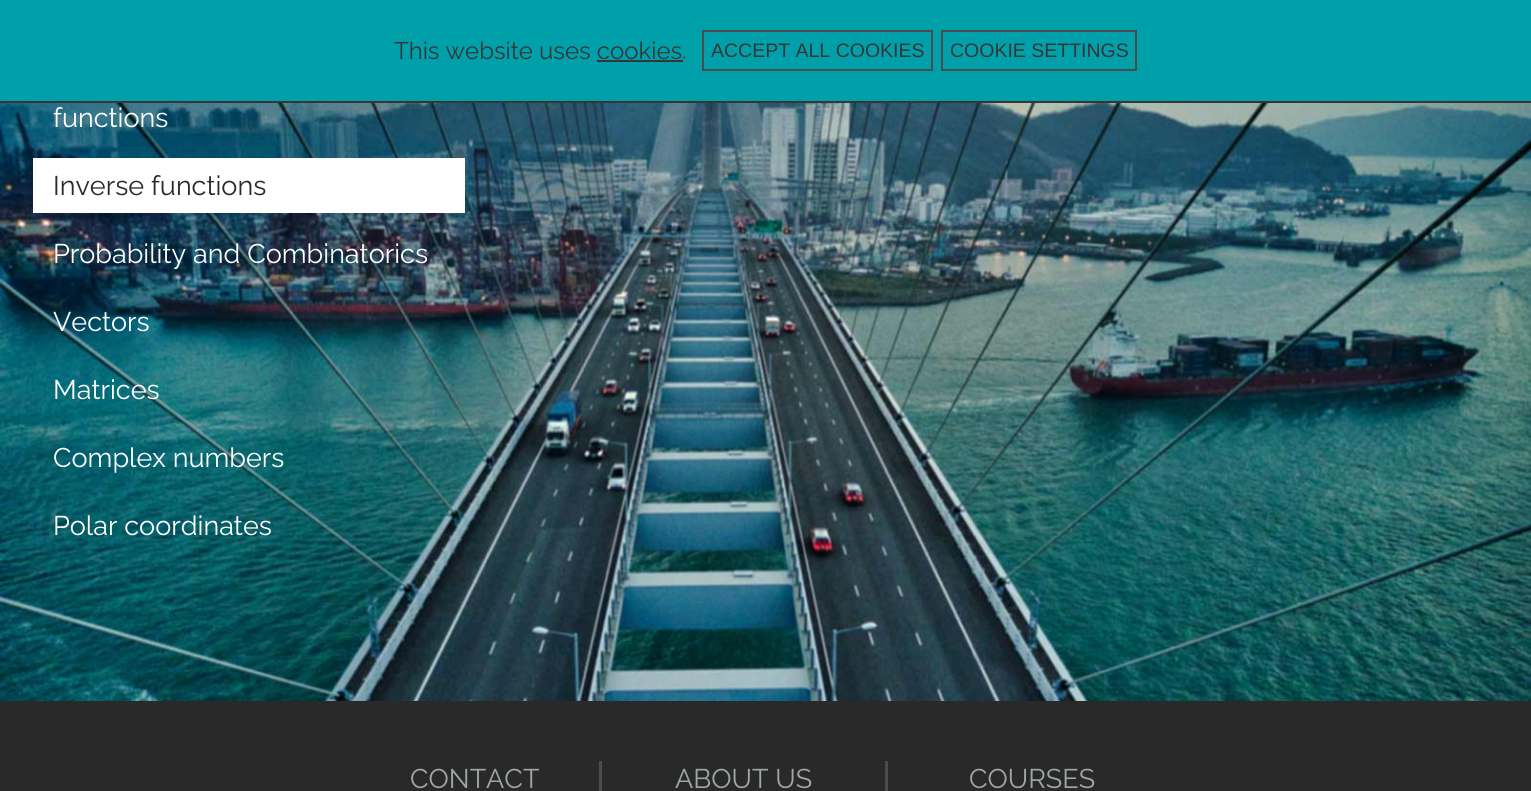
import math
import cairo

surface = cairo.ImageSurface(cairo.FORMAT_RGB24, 1531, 791)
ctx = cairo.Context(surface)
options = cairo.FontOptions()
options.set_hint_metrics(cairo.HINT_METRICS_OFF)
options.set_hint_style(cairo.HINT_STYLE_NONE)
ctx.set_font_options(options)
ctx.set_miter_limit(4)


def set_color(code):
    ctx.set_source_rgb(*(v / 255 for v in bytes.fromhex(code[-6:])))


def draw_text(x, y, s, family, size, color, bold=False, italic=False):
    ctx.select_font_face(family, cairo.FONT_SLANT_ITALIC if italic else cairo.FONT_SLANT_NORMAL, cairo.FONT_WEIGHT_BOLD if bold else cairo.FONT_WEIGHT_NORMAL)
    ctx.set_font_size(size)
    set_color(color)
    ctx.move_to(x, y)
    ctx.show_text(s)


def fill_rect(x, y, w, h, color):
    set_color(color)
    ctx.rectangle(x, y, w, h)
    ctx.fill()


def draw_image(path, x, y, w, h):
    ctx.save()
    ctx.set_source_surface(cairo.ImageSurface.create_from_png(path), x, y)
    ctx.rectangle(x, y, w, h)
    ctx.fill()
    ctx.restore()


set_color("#ffffff")
ctx.paint()
draw_image("assets/img1.png", 0, 103, 1531, 598)
fill_rect(0, 0, 1531, 101, "#00a0aa")
fill_rect(0, 101, 1531, 2, "#373536")
draw_text(394, 59, "This website uses cookies.", "Raleway", 24, "#373536")
fill_rect(597, 60, 86, 2, "#373536")
ctx.rectangle(703, 31, 229, 39)
set_color("#4b4b4b")
ctx.stroke()
draw_text(711, 57, "ACCEPT ALL COOKIES", "Liberation Sans", 19.5, "#373536")
ctx.rectangle(942, 31, 194, 39)
set_color("#4b4b4b")
ctx.stroke()
draw_text(950, 57, "COOKIE SETTINGS", "Liberation Sans", 19.5, "#373536")
draw_text(53, 127, "functions", "Raleway", 27, "#ffffff")
fill_rect(33, 158, 432, 55, "#ffffff")
draw_text(53, 195, "Inverse functions", "Raleway", 27, "#292929")
draw_text(53, 263, "Probability and Combinatorics", "Raleway", 27, "#ffffff")
draw_text(53, 331, "Vectors", "Raleway", 27, "#ffffff")
draw_text(53, 399, "Matrices", "Raleway", 27, "#ffffff")
draw_text(53, 467, "Complex numbers", "Raleway", 27, "#ffffff")
draw_text(53, 535, "Polar coordinates", "Raleway", 27, "#ffffff")
fill_rect(0, 701, 1531, 90, "#292929")
draw_text(410, 788, "CONTACT", "Raleway", 27, "#a0a7a7")
fill_rect(599, 761, 3, 30, "#4b4b4b")
draw_text(675, 788, "ABOUT US", "Raleway", 27, "#a0a7a7")
fill_rect(885, 761, 3, 30, "#4b4b4b")
draw_text(969, 788, "COURSES", "Raleway", 27, "#a0a7a7")
surface.write_to_png("output.png")
